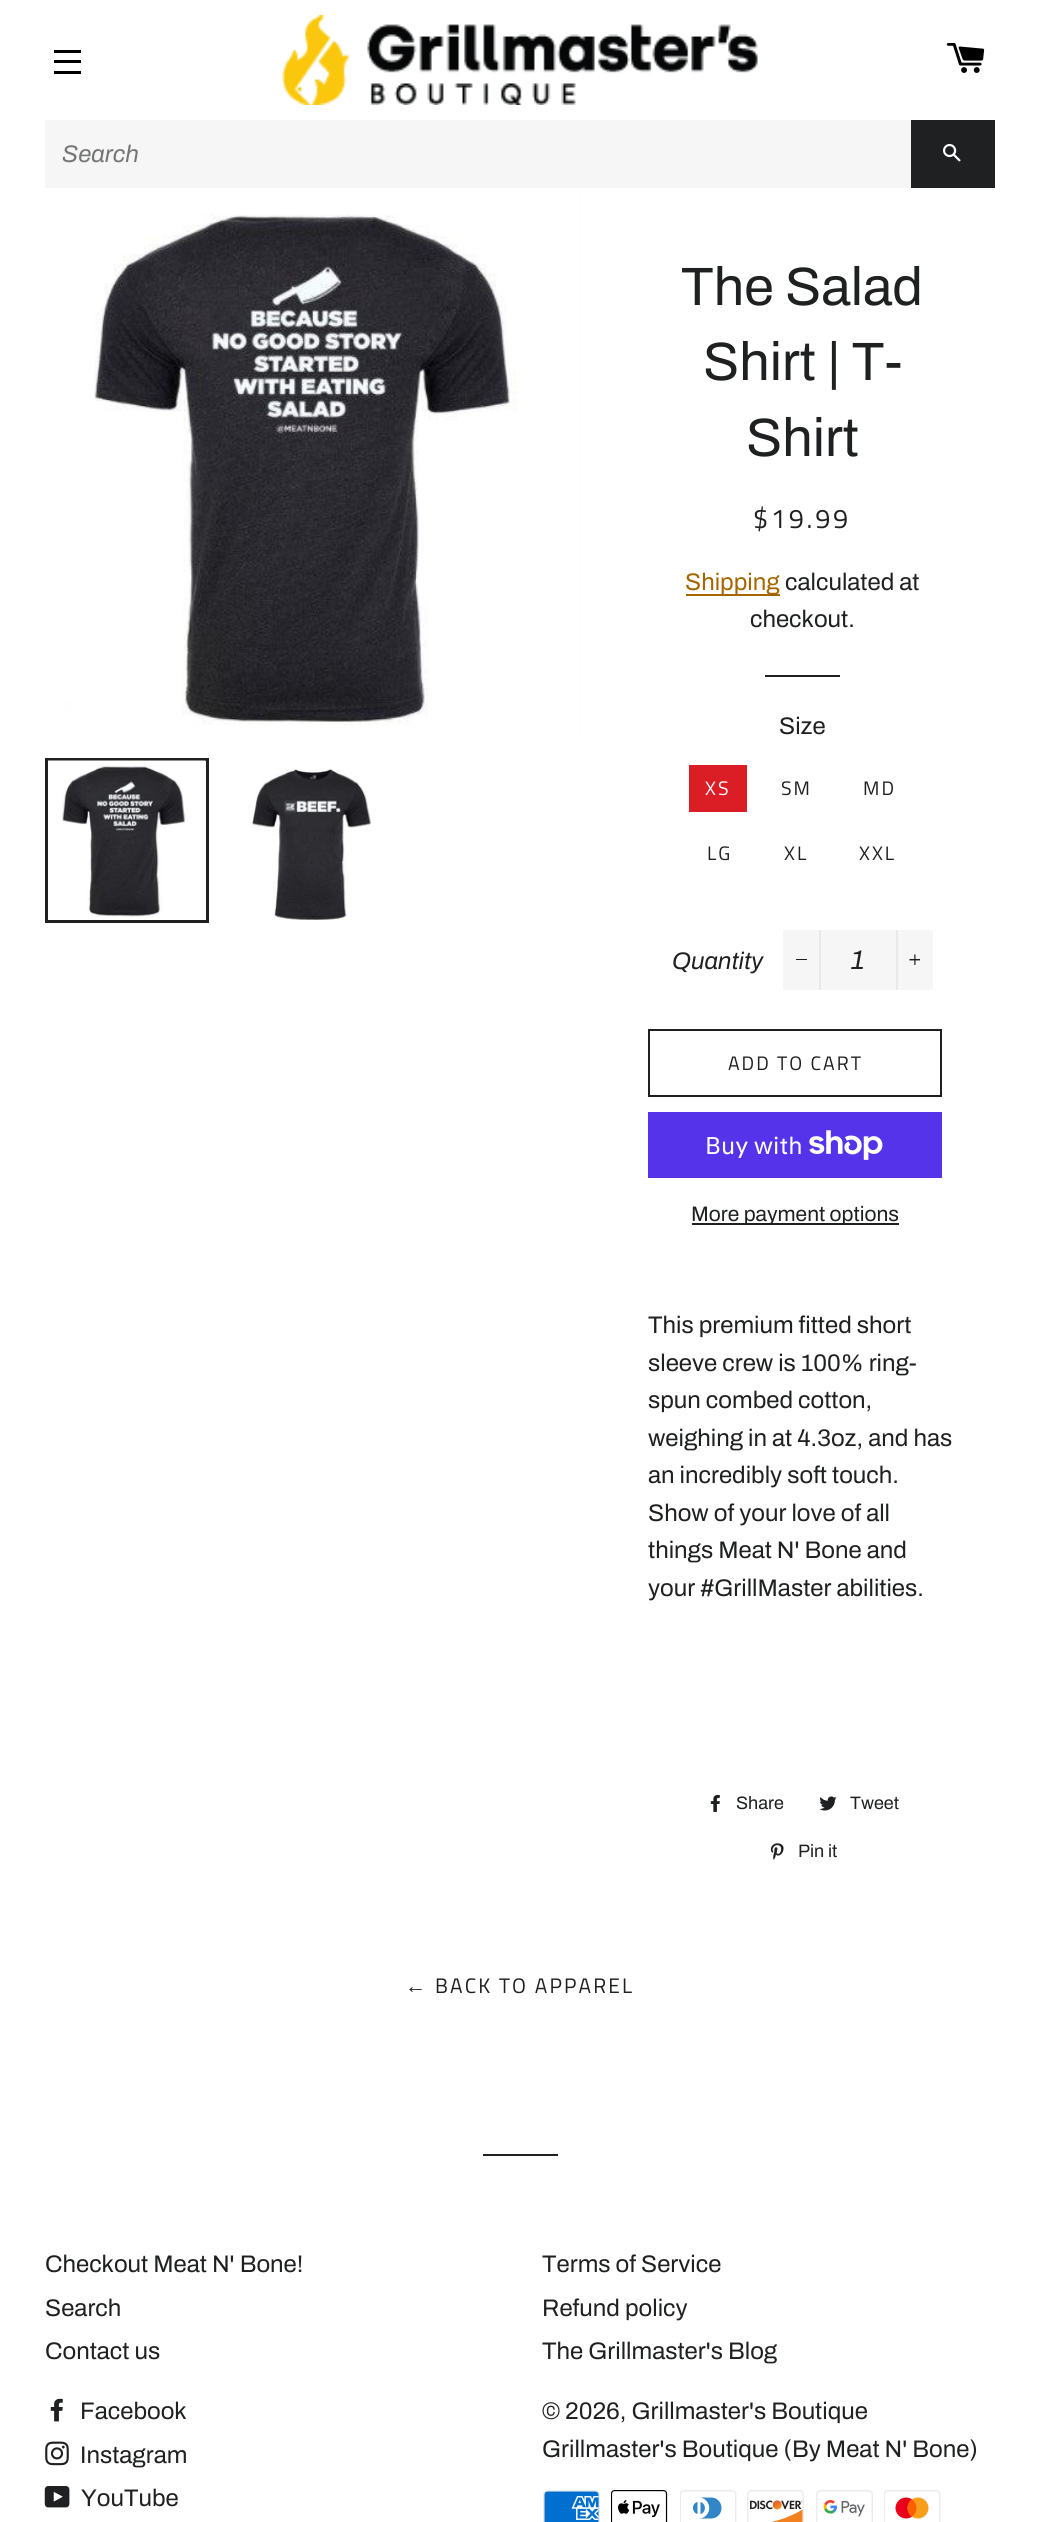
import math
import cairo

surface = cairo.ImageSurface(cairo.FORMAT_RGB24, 1039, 2522)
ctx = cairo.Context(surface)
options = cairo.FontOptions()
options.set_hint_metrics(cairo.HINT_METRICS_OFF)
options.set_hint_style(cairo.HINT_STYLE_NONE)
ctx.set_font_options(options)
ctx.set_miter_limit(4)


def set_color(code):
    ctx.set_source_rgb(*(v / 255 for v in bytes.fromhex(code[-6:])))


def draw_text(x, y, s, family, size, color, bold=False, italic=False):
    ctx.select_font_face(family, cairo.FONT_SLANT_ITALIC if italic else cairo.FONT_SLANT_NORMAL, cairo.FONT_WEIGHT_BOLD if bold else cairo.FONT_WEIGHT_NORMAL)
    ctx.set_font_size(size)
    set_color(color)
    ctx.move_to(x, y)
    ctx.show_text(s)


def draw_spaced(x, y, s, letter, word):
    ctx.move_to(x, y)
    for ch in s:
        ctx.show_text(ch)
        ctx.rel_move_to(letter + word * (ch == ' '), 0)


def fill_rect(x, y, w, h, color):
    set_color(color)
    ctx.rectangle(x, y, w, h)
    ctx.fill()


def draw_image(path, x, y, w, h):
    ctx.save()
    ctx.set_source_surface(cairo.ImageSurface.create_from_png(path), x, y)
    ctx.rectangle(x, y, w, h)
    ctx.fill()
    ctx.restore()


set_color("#ffffff")
ctx.paint()
fill_rect(54, 50, 27, 3, "#000000")
fill_rect(54, 60, 27, 3, "#000000")
fill_rect(54, 71, 27, 3, "#000000")
draw_image("assets/img1.png", 282, 15, 476, 90)
draw_image("assets/img2.png", 946, 43, 39, 30)
fill_rect(45, 120, 866, 68, "#f6f6f6")
draw_text(62, 162, "Search", "Archivo", 24, "#757676", italic=True)
fill_rect(911, 120, 84, 68, "#1f2021")
draw_image("assets/img3.png", 943, 143, 18, 19)
fill_rect(580, 195, 1, 540, "#f6f6f6")
draw_image("assets/img4.png", 45, 195, 536, 540)
ctx.rectangle(46.5, 759.5, 161, 162)
set_color("#1f2021")
ctx.set_line_width(3)
ctx.stroke()
draw_image("assets/img5.png", 48, 760, 158, 157)
draw_image("assets/img6.png", 251, 768, 120, 152)
draw_text(681, 305, "The Salad", "Archivo", 54, "#1f2021")
draw_text(703, 380, "Shirt | T-", "Archivo", 54, "#1f2021")
draw_text(746, 456, "Shirt", "Archivo", 54, "#1f2021")
ctx.select_font_face("Titillium Web")
ctx.set_font_size(27)
draw_spaced(753, 528, "$19.99", 2.75, 0)
fill_rect(686, 594, 94, 2, "#a56600")
draw_text(685, 590, "Shipping", "Archivo", 24, "#a56600")
draw_text(785, 590, "calculated at", "Archivo", 24, "#1f2021")
draw_text(750, 627, "checkout.", "Archivo", 24, "#1f2021")
fill_rect(765, 675, 75, 2, "#1f2021")
draw_text(779, 734, "Size", "Archivo", 24, "#1f2021")
fill_rect(689, 765, 58, 47, "#db1d25")
ctx.select_font_face("Titillium Web")
ctx.set_font_size(19.5)
set_color("#ffffff")
draw_spaced(705, 795, "XS", 2, 0)
set_color("#1f2021")
draw_spaced(781, 795, "SM", 2, 0)
draw_spaced(863, 795, "MD", 2, 0)
draw_spaced(707, 860, "LG", 2, 0)
draw_spaced(784, 860, "XL", 2, 0)
draw_spaced(859, 860, "XXL", 2, 0)
draw_text(672, 969, "Quantity", "Archivo", 24, "#1f2021", italic=True)
fill_rect(783, 930, 150, 60, "#f6f6f6")
fill_rect(819, 930, 2, 60, "#e9e9e9")
fill_rect(796, 959, 11, 1, "#1c1d1d")
draw_text(851, 969, "1", "Archivo", 27, "#1f2021", italic=True)
fill_rect(896, 930, 2, 60, "#e9e9e9")
draw_image("assets/img7.png", 909, 954, 12, 11)
ctx.rectangle(649, 1030, 292, 66)
set_color("#1f2021")
ctx.set_line_width(2)
ctx.stroke()
ctx.select_font_face("Titillium Web")
ctx.set_font_size(19.5)
draw_spaced(728, 1070, "ADD TO CART", 2, 0)
fill_rect(648, 1112, 294, 66, "#5433eb")
draw_text(705, 1154, "Buy with", "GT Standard", 24, "#ffffff")
draw_image("assets/img8.png", 809, 1130, 74, 30)
fill_rect(692, 1223, 207, 2, "#1f2021")
draw_text(691, 1221, "More payment options", "Archivo", 21, "#1f2021")
draw_text(648, 1333, "This premium fitted short", "Archivo", 24, "#1f2021")
draw_text(648, 1371, "sleeve crew is 100% ring-", "Archivo", 24, "#1f2021")
draw_text(648, 1408, "spun combed cotton,", "Archivo", 24, "#1f2021")
draw_text(648, 1446, "weighing in at 4.3oz, and has", "Archivo", 24, "#1f2021")
draw_text(648, 1483, "an incredibly soft touch.", "Archivo", 24, "#1f2021")
draw_text(648, 1521, "Show of your love of all", "Archivo", 24, "#1f2021")
draw_text(648, 1558, "things Meat N' Bone and", "Archivo", 24, "#1f2021")
draw_text(648, 1596, "your #GrillMaster abilities.", "Archivo", 24, "#1f2021")
draw_image("assets/img9.png", 710, 1795, 10, 17)
draw_text(736, 1809, "Share", "Archivo", 18, "#1f2021")
draw_image("assets/img10.png", 819, 1796, 18, 15)
draw_text(850, 1809, "Tweet", "Archivo", 18, "#1f2021")
draw_image("assets/img11.png", 770, 1843, 14, 17)
draw_text(798, 1857, "Pin it", "Archivo", 18, "#1f2021")
ctx.select_font_face("Liberation Sans")
ctx.set_font_size(21)
draw_spaced(405, 1993, "←", 2.1, 0)
ctx.select_font_face("Titillium Web")
draw_spaced(435, 1993, "BACK TO APPAREL", 2.1, 0)
fill_rect(483, 2154, 75, 2, "#1f2021")
draw_text(45, 2272, "Checkout Meat N' Bone!", "Archivo", 24, "#1f2021")
draw_text(45, 2316, "Search", "Archivo", 24, "#1f2021")
draw_text(45, 2359, "Contact us", "Archivo", 24, "#1f2021")
draw_text(542, 2272, "Terms of Service", "Archivo", 24, "#1f2021")
draw_text(542, 2316, "Refund policy", "Archivo", 24, "#1f2021")
draw_text(542, 2359, "The Grillmaster's Blog", "Archivo", 24, "#1f2021")
draw_image("assets/img12.png", 50, 2398, 13, 24)
draw_text(80, 2419, "Facebook", "Archivo", 24, "#1f2021")
draw_image("assets/img13.png", 45, 2441, 24, 25)
draw_text(80, 2463, "Instagram", "Archivo", 24, "#1f2021")
draw_image("assets/img14.png", 44, 2486, 26, 22)
draw_text(81, 2506, "YouTube", "Archivo", 24, "#1f2021")
draw_text(542, 2419, "© 2026, Grillmaster's Boutique", "Archivo", 24, "#1f2021")
draw_text(542, 2457, "Grillmaster's Boutique (By Meat N' Bone)", "Archivo", 24, "#1f2021")
draw_image("assets/img15.png", 543, 2490, 57, 32)
draw_image("assets/img16.png", 611, 2490, 57, 32)
draw_image("assets/img17.png", 680, 2490, 57, 32)
draw_image("assets/img18.png", 747, 2490, 57, 32)
draw_image("assets/img19.png", 816, 2490, 57, 32)
draw_image("assets/img20.png", 884, 2490, 57, 32)
surface.write_to_png("output.png")
